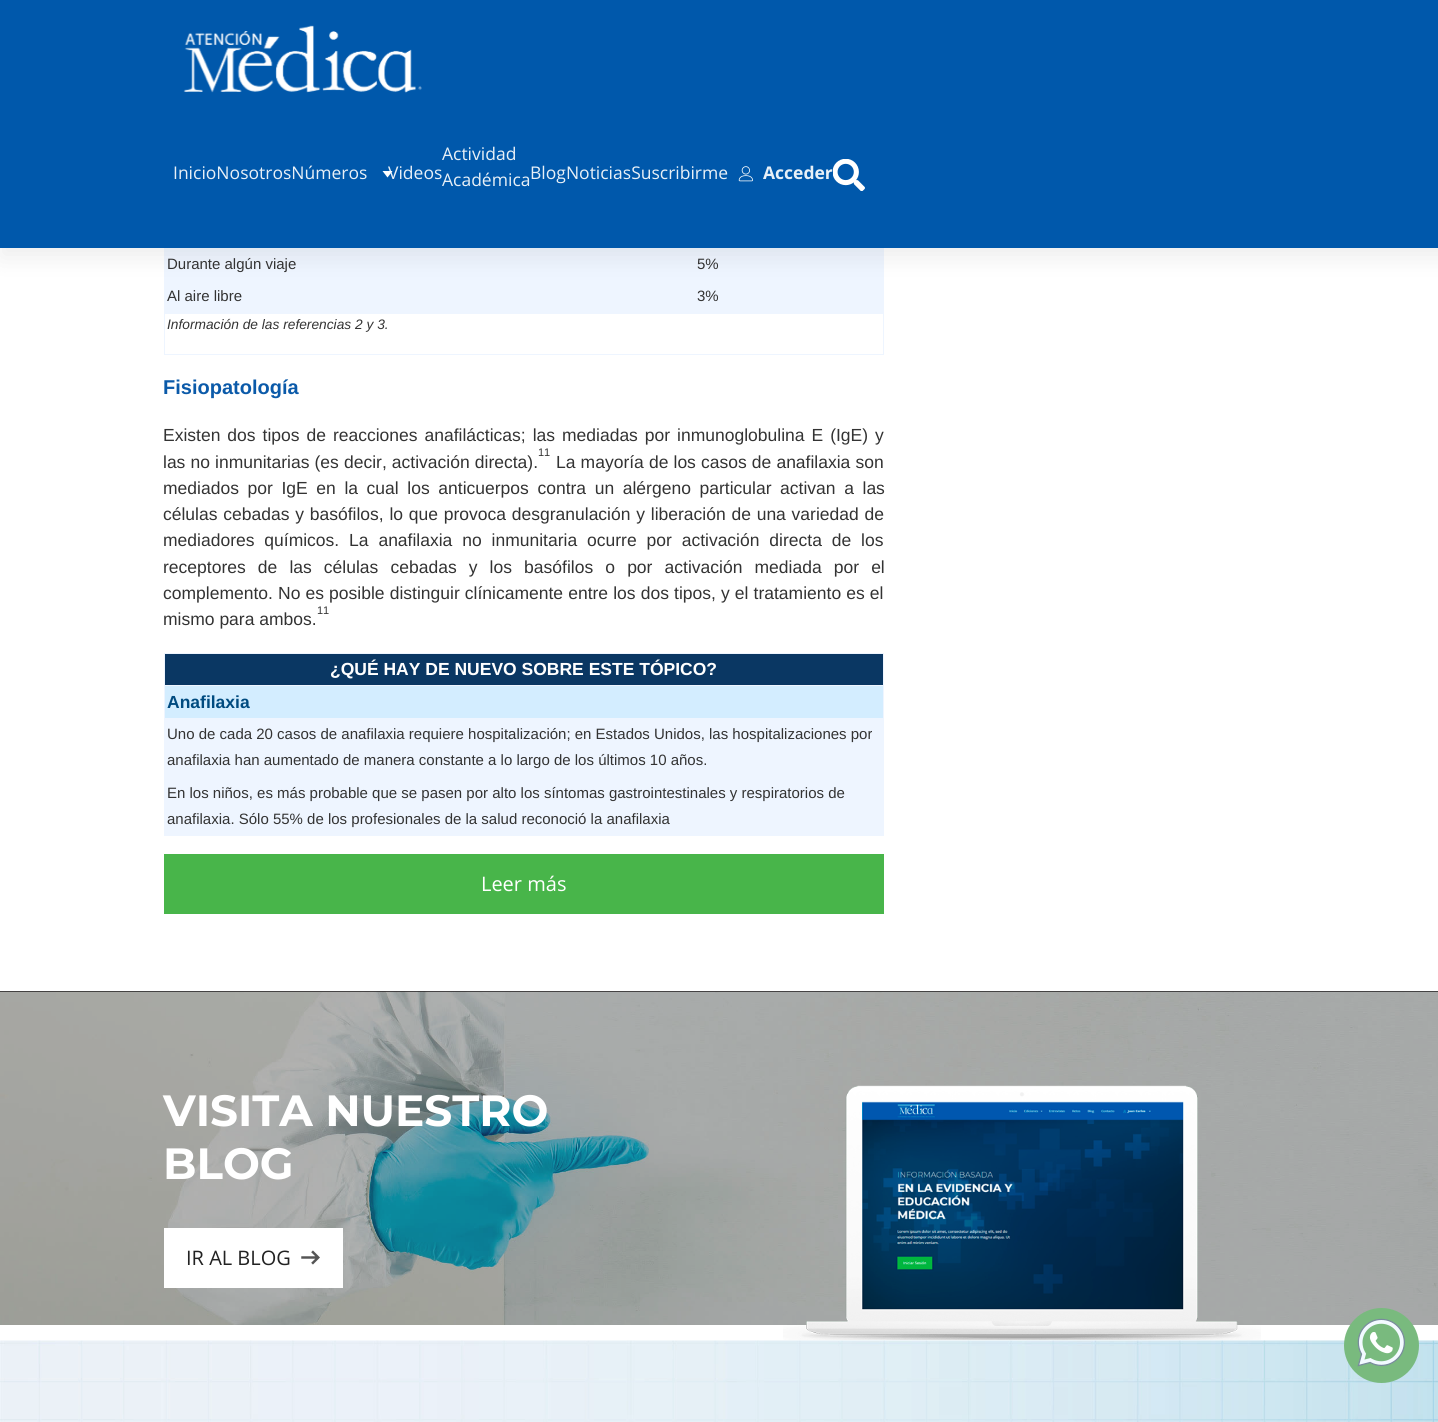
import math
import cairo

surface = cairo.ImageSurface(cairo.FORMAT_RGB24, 1438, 1422)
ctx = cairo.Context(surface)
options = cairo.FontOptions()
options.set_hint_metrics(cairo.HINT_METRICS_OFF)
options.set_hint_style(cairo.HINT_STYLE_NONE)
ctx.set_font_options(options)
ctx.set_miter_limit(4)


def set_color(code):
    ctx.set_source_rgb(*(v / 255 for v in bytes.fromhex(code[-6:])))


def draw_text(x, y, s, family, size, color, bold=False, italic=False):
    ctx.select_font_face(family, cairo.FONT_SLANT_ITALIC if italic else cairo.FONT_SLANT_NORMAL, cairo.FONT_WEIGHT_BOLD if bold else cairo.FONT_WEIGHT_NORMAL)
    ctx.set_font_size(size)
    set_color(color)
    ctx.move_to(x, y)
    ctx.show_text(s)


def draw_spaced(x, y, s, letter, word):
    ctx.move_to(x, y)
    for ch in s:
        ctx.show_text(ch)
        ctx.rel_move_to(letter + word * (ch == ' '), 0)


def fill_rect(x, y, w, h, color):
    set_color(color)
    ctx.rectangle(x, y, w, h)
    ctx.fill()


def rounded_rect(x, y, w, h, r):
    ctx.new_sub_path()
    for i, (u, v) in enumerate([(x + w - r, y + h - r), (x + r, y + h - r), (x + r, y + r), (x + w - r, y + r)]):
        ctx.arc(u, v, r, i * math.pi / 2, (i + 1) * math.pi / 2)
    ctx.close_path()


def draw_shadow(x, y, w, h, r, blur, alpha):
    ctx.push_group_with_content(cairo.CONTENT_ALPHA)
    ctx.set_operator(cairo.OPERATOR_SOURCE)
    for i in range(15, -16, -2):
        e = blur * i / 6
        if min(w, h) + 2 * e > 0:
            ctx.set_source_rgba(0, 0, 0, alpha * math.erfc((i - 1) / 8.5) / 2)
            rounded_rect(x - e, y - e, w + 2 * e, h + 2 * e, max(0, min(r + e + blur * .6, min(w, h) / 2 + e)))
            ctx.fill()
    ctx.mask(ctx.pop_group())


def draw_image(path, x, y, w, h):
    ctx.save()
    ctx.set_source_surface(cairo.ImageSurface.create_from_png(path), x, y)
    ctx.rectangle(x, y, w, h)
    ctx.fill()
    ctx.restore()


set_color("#ffffff")
ctx.paint()
fill_rect(883, 248, 1, 107, "#eef5ff")
fill_rect(164, 354, 720, 1, "#eef5ff")
fill_rect(164, 248, 1, 107, "#eef5ff")
fill_rect(165, 248, 718, 66, "#eef5ff")
set_color("#000000")
draw_shadow(0, 10, 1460, 248, 0, 12.5, 0.07)
fill_rect(0, 0, 1438, 248, "#0058ab")
draw_image("assets/img1.png", 183, 25, 239, 68)
draw_text(173, 179, "InicioNosotrosNúmeros", "Open Sans", 17.5, "#e8f0f7")
draw_text(388, 179, "Videos", "Open Sans", 17.5, "#e8f0f7")
draw_text(442, 160, "Actividad", "Open Sans", 17.5, "#e8f0f7")
draw_text(442, 186, "Académica", "Open Sans", 17.5, "#e8f0f7")
draw_text(530, 179, "BlogNoticiasSuscribirme", "Open Sans", 17.5, "#e8f0f7")
draw_image("assets/img2.png", 738, 166, 15, 16)
draw_text(763, 179, "Acceder", "Open Sans", 17.5, "#e8f0f7", bold=True)
draw_image("assets/img3.png", 833, 159, 32, 32)
set_color("#ffffff")
ctx.set_fill_rule(cairo.FILL_RULE_EVEN_ODD)
ctx.new_path()
ctx.move_to(387.5, 177.5)
ctx.line_to(392.5, 171)
ctx.line_to(382.5, 171)
ctx.close_path()
ctx.fill()
draw_text(167, 269, "Durante algún viaje", "Liberation Sans", 15, "#333333")
draw_text(697, 269, "5%", "Liberation Sans", 15, "#333333")
draw_text(167, 301, "Al aire libre", "Liberation Sans", 15, "#333333")
draw_text(697, 301, "3%", "Liberation Sans", 15, "#333333")
draw_text(167, 329, "Información de las referencias 2 y 3.", "Liberation Sans", 13.75, "#333333", italic=True)
draw_text(163, 394, "Fisiopatología", "Liberation Sans", 20, "#0b5aa9", bold=True)
ctx.select_font_face("Liberation Sans")
ctx.set_font_size(17.5)
set_color("#333333")
draw_spaced(163, 441, "Existen dos tipos de reacciones anafilácticas; las mediadas por inmunoglobulina E (IgE) y", 0, 2.1)
draw_text(538, 456, "11", "Liberation Sans", 11, "#333333")
ctx.set_font_size(17.5)
draw_spaced(163, 468, "las no inmunitarias (es decir, activación directa).", 0, 0.25)
draw_spaced(556, 468, "La mayoría de los casos de anafilaxia son", 0, 0.25)
draw_spaced(163, 494, "mediados por IgE en la cual los anticuerpos contra un alérgeno particular activan a las", 0, 3.75)
draw_spaced(163, 520, "células cebadas y basófilos, lo que provoca desgranulación y liberación de una variedad de", 0, 0.9)
draw_spaced(163, 546, "mediadores químicos. La anafilaxia no inmunitaria ocurre por activación directa de los", 0, 5)
draw_spaced(163, 573, "receptores de las células cebadas y los basófilos o por activación mediada por el", 0, 7.25)
draw_spaced(163, 599, "complemento. No es posible distinguir clínicamente entre los dos tipos, y el tratamiento es el", 0, 0.25)
draw_text(317, 614, "11", "Liberation Sans", 11, "#333333")
draw_text(163, 625, "mismo para ambos.", "Liberation Sans", 17.5, "#333333")
fill_rect(164, 653, 720, 1, "#eef5ff")
fill_rect(883, 653, 1, 183, "#eef5ff")
fill_rect(164, 653, 1, 183, "#eef5ff")
fill_rect(165, 654, 718, 31, "#0a3763")
draw_text(330, 675, "¿QUÉ HAY DE NUEVO SOBRE ESTE TÓPICO?", "Liberation Sans", 17.5, "#ffffff", bold=True)
fill_rect(165, 686, 718, 32, "#d3edff")
fill_rect(164, 685, 720, 1, "#eef5ff")
draw_text(167, 708, "Anafilaxia", "Liberation Sans", 17.5, "#004b80", bold=True)
fill_rect(165, 719, 718, 117, "#eef5ff")
fill_rect(164, 718, 720, 1, "#eef5ff")
draw_text(167, 739, "Uno de cada 20 casos de anafilaxia requiere hospitalización; en Estados Unidos, las hospitalizaciones por", "Liberation Sans", 15, "#333333")
draw_text(167, 765, "anafilaxia han aumentado de manera constante a lo largo de los últimos 10 años.", "Liberation Sans", 15, "#333333")
draw_text(167, 798, "En los niños, es más probable que se pasen por alto los síntomas gastrointestinales y respiratorios de", "Liberation Sans", 15, "#333333")
draw_text(167, 824, "anafilaxia. Sólo 55% de los profesionales de la salud reconoció la anafilaxia", "Liberation Sans", 15, "#333333")
fill_rect(164, 854, 720, 60, "#48b54a")
draw_text(481, 891, "Leer más", "Open Sans", 20, "#ffffff")
fill_rect(0, 991, 1438, 334, "#232122")
draw_image("assets/img4.png", 0, 991, 1438, 334)
draw_text(163, 1126, "VISITA NUESTRO", "Montserrat", 43.75, "#ffffff", bold=True)
draw_text(163, 1179, "BLOG", "Montserrat", 43.75, "#ffffff", bold=True)
fill_rect(164, 1228, 179, 60, "#ffffff")
draw_text(186, 1265, "IR AL BLOG", "Open Sans", 20, "#222222")
draw_image("assets/img5.png", 301, 1250, 19, 15)
draw_image("assets/img6.png", 783, 1085, 478, 255)
draw_image("assets/img7.png", 0, 1340, 1438, 82)
set_color("#79ba7e")
ctx.arc(1381.5, 1345.5, 37.5, 0, 2 * math.pi)
ctx.fill()
draw_image("assets/img8.png", 1357, 1318, 48, 49)
surface.write_to_png("output.png")
